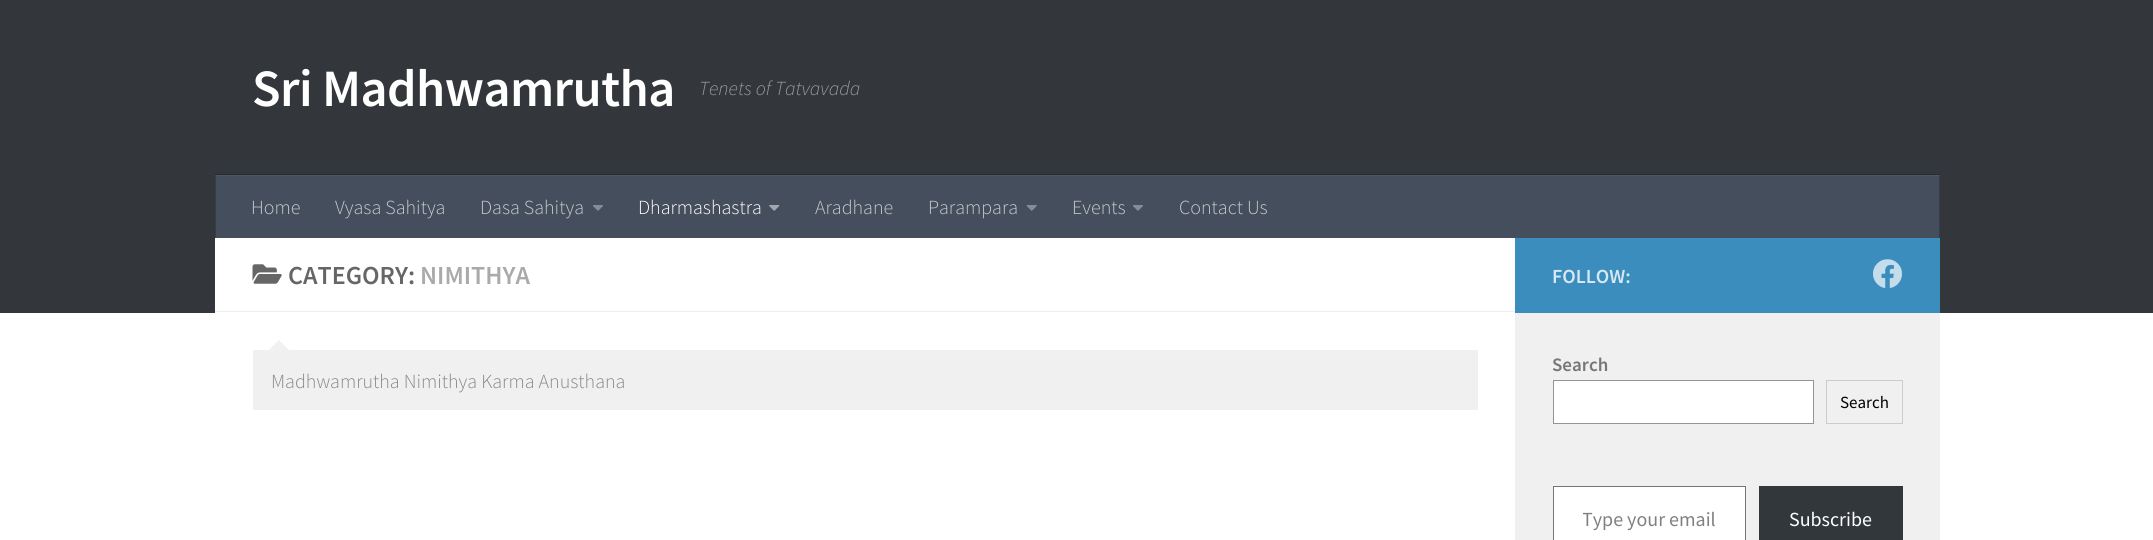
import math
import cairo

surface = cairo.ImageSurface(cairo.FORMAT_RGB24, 2153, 540)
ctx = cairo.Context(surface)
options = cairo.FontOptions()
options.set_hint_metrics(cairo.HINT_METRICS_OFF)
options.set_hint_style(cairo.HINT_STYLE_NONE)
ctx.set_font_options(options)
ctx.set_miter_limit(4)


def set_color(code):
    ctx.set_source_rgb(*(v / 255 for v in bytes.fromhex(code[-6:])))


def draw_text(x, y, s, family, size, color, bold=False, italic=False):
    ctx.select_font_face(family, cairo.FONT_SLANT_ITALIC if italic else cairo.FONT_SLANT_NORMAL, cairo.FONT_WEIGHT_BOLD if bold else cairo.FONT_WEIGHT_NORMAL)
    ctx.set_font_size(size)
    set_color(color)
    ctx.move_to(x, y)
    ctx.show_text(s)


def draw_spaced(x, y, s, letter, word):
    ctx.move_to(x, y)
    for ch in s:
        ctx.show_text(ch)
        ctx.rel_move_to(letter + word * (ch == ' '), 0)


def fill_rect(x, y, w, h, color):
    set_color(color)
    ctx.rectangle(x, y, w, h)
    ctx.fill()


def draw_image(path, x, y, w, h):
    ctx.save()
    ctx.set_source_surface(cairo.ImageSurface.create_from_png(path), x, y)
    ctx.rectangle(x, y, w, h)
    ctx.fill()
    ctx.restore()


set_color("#ffffff")
ctx.paint()
fill_rect(0, 0, 2153, 313, "#33363b")
ctx.select_font_face("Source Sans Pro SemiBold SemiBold")
ctx.set_font_size(52.5)
set_color("#ffffff")
draw_spaced(252, 106, "Sri Madhwamrutha", -0.6, 0)
draw_text(699, 95, "Tenets of Tatvavada", "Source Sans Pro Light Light", 20, "#999b9d", italic=True)
fill_rect(215, 174, 1725, 1, "#292b2f")
fill_rect(216, 176, 1723, 62, "#454e5c")
fill_rect(215, 175, 1725, 1, "#4e5764")
fill_rect(1939, 175, 1, 63, "#373e4a")
fill_rect(1939, 175, 1, 1, "#414853")
fill_rect(215, 175, 1, 63, "#373e4a")
fill_rect(215, 175, 1, 1, "#414853")
draw_text(251, 214, "Home", "Source Sans Pro Light Light", 20, "#c7cace")
draw_text(335, 214, "Vyasa Sahitya", "Source Sans Pro Light Light", 20, "#c7cace")
draw_text(480, 214, "Dasa Sahitya", "Source Sans Pro Light Light", 20, "#c7cace")
draw_image("assets/img1.png", 593, 205, 10, 6)
draw_text(638, 214, "Dharmashastra", "Source Sans Pro Light Light", 20, "#ffffff")
draw_image("assets/img2.png", 769, 205, 11, 6)
draw_text(815, 214, "Aradhane", "Source Sans Pro Light Light", 20, "#c7cace")
draw_text(928, 214, "Parampara", "Source Sans Pro Light Light", 20, "#c7cace")
draw_image("assets/img3.png", 1026, 205, 11, 6)
draw_text(1072, 214, "Events", "Source Sans Pro Light Light", 20, "#c7cace")
draw_image("assets/img1.png", 1133, 205, 10, 6)
draw_text(1179, 214, "Contact Us", "Source Sans Pro Light Light", 20, "#c7cace")
fill_rect(215, 238, 1300, 75, "#ffffff")
fill_rect(215, 311, 1300, 1, "#eeeeee")
draw_image("assets/img4.png", 252, 264, 30, 20)
draw_text(288, 284, "CATEGORY:", "Source Sans Pro SemiBold SemiBold", 26, "#666666")
draw_text(420, 284, "NIMITHYA", "Source Sans Pro SemiBold SemiBold", 26, "#aaaaaa")
fill_rect(253, 350, 1225, 60, "#f0f0f0")
set_color("#f1f1f1")
ctx.new_path()
ctx.move_to(289, 350)
ctx.line_to(269, 350)
ctx.line_to(279, 340)
ctx.close_path()
ctx.fill()
draw_text(271, 388, "Madhwamrutha Nimithya Karma Anusthana", "Source Sans Pro Light Light", 20, "#888888")
fill_rect(1515, 238, 425, 75, "#3b8dbd")
draw_text(1552, 283, "FOLLOW:", "Source Sans Pro SemiBold SemiBold", 20, "#d8e8f2")
draw_image("assets/img5.png", 1873, 259, 29, 29)
fill_rect(1515, 313, 425, 227, "#f0f0f0")
draw_text(1552, 371, "Search", "Source Sans Pro SemiBold SemiBold", 19, "#777777")
set_color("#ffffff")
ctx.rectangle(1553.5, 380.5, 260, 43)
ctx.fill_preserve()
set_color("#949494")
ctx.set_line_width(1)
ctx.stroke()
ctx.rectangle(1826.5, 380.5, 76, 43)
set_color("#cccccc")
ctx.stroke()
draw_text(1840, 408, "Search", "Source Sans Pro", 17, "#000000")
set_color("#ffffff")
ctx.rectangle(1553.5, 486.5, 192, 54)
ctx.fill_preserve()
set_color("#767676")
ctx.stroke()
ctx.save()
ctx.rectangle(1583, 506, 133, 25)
ctx.clip()
draw_text(1582, 526, "Type your email", "Source Sans Pro", 20, "#808080")
ctx.restore()
fill_rect(1759, 486, 144, 54, "#32373c")
draw_text(1789, 526, "Subscribe", "Source Sans Pro", 20, "#ffffff")
surface.write_to_png("output.png")
